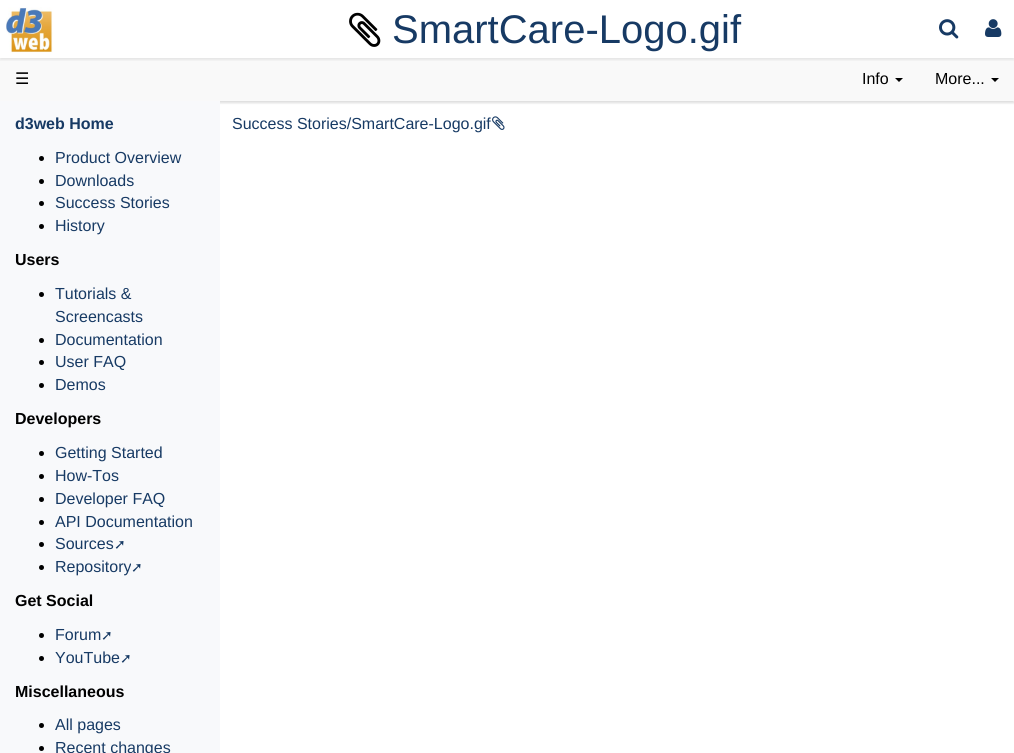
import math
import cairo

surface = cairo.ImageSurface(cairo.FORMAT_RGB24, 1014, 753)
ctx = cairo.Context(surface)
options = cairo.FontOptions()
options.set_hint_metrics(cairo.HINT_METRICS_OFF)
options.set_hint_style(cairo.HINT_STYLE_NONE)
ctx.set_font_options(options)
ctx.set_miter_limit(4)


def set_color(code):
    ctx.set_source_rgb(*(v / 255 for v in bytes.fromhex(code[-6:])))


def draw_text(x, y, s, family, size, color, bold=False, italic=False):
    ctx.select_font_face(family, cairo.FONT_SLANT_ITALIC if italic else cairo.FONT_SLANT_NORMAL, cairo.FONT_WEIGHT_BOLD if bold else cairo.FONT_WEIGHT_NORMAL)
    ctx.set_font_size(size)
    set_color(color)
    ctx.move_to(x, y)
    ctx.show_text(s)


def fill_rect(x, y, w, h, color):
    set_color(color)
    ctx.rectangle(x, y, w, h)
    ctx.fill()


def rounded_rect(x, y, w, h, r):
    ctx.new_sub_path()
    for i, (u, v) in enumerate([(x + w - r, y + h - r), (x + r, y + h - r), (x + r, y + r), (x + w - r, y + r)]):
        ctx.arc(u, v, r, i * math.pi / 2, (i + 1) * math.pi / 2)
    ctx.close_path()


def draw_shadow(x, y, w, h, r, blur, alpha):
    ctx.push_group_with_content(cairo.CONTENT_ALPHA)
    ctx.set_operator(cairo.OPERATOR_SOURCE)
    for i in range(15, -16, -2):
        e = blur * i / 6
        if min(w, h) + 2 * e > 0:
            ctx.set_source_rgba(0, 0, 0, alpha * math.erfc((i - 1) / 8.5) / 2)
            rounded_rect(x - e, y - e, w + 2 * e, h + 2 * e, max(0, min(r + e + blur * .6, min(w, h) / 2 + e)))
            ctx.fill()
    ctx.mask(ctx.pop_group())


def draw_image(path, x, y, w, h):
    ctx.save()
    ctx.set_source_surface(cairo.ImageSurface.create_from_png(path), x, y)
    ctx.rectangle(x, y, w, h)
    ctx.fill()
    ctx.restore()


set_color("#ffffff")
ctx.paint()
ctx.save()
ctx.rectangle(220, 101, 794, 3)
ctx.clip()
set_color("#000000")
draw_shadow(0, 2, 1014, 101, 0, 1.5, 0.07)
ctx.restore()
set_color("#000000")
draw_shadow(0, 60, 1014, 43, 0, 1.5, 0.08)
fill_rect(0, 58, 1014, 43, "#f9f9f9")
ctx.save()
ctx.rectangle(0, 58, 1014, 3)
ctx.clip()
set_color("#000000")
draw_shadow(0, 2, 1014, 58, 0, 1.5, 0.08)
ctx.restore()
draw_image("assets/img1.png", 6, 7, 47, 46)
draw_image("assets/img2.png", 349, 12, 32, 35)
draw_text(392, 43, "SmartCare-Logo.gif", "Liberation Sans", 40, "#173a64")
draw_image("assets/img3.png", 939, 19, 20, 20)
draw_image("assets/img4.png", 985, 19, 17, 18)
draw_text(15, 84, "☰", "DejaVu Sans", 16, "#000000")
draw_text(862, 84, "Info", "Liberation Sans", 16, "#000000")
ctx.new_path()
ctx.move_to(895, 78)
ctx.line_to(903, 78)
ctx.line_to(899, 82)
ctx.close_path()
ctx.fill()
draw_text(935, 84, "More...", "Liberation Sans", 16, "#000000")
ctx.new_path()
ctx.move_to(991, 78)
ctx.line_to(999, 78)
ctx.line_to(995, 82)
ctx.close_path()
ctx.fill()
fill_rect(0, 101, 220, 652, "#f8f9fb")
draw_text(15, 129, "d3web Home", "Liberation Sans", 16, "#173a64", bold=True)
set_color("#000000")
ctx.new_path()
ctx.arc(41.5, 158.5, 2.5, 0, 2 * math.pi)
ctx.fill()
draw_text(55, 163, "Product Overview", "Liberation Sans", 16, "#173a64")
set_color("#000000")
ctx.new_path()
ctx.arc(41.5, 181.5, 2.5, 0, 2 * math.pi)
ctx.fill()
draw_text(55, 186, "Downloads", "Liberation Sans", 16, "#173a64")
set_color("#000000")
ctx.new_path()
ctx.arc(41.5, 203.5, 2.5, 0, 2 * math.pi)
ctx.fill()
draw_text(55, 208, "Success Stories", "Liberation Sans", 16, "#173a64")
set_color("#000000")
ctx.new_path()
ctx.arc(41.5, 226.5, 2.5, 0, 2 * math.pi)
ctx.fill()
draw_text(55, 231, "History", "Liberation Sans", 16, "#173a64")
draw_text(15, 265, "Users", "Liberation Sans", 16, "#000000", bold=True)
ctx.new_path()
ctx.arc(41.5, 294.5, 2.5, 0, 2 * math.pi)
ctx.fill()
draw_text(55, 299, "Tutorials &", "Liberation Sans", 16, "#173a64")
draw_text(55, 322, "Screencasts", "Liberation Sans", 16, "#173a64")
set_color("#000000")
ctx.new_path()
ctx.arc(41.5, 340.5, 2.5, 0, 2 * math.pi)
ctx.fill()
draw_text(55, 345, "Documentation", "Liberation Sans", 16, "#173a64")
set_color("#000000")
ctx.new_path()
ctx.arc(41.5, 362.5, 2.5, 0, 2 * math.pi)
ctx.fill()
draw_text(55, 367, "User FAQ", "Liberation Sans", 16, "#173a64")
set_color("#000000")
ctx.new_path()
ctx.arc(41.5, 385.5, 2.5, 0, 2 * math.pi)
ctx.fill()
draw_text(55, 390, "Demos", "Liberation Sans", 16, "#173a64")
draw_text(15, 424, "Developers", "Liberation Sans", 16, "#000000", bold=True)
ctx.new_path()
ctx.arc(41.5, 453.5, 2.5, 0, 2 * math.pi)
ctx.fill()
draw_text(55, 458, "Getting Started", "Liberation Sans", 16, "#173a64")
set_color("#000000")
ctx.new_path()
ctx.arc(41.5, 476.5, 2.5, 0, 2 * math.pi)
ctx.fill()
draw_text(55, 481, "How-Tos", "Liberation Sans", 16, "#173a64")
set_color("#000000")
ctx.new_path()
ctx.arc(41.5, 499.5, 2.5, 0, 2 * math.pi)
ctx.fill()
draw_text(55, 504, "Developer FAQ", "Liberation Sans", 16, "#173a64")
set_color("#000000")
ctx.new_path()
ctx.arc(41.5, 522.5, 2.5, 0, 2 * math.pi)
ctx.fill()
draw_text(55, 527, "API Documentation", "Liberation Sans", 16, "#173a64")
set_color("#000000")
ctx.new_path()
ctx.arc(41.5, 544.5, 2.5, 0, 2 * math.pi)
ctx.fill()
draw_text(55, 549, "Sources", "Liberation Sans", 16, "#173a64")
draw_text(114, 549, "➚", "DejaVu Sans", 14, "#173a64")
set_color("#000000")
ctx.new_path()
ctx.arc(41.5, 567.5, 2.5, 0, 2 * math.pi)
ctx.fill()
draw_text(55, 572, "Repository", "Liberation Sans", 16, "#173a64")
draw_text(131, 572, "➚", "DejaVu Sans", 14, "#173a64")
draw_text(15, 606, "Get Social", "Liberation Sans", 16, "#000000", bold=True)
ctx.new_path()
ctx.arc(41.5, 635.5, 2.5, 0, 2 * math.pi)
ctx.fill()
draw_text(55, 640, "Forum", "Liberation Sans", 16, "#173a64")
draw_text(101, 640, "➚", "DejaVu Sans", 14, "#173a64")
set_color("#000000")
ctx.new_path()
ctx.arc(41.5, 658.5, 2.5, 0, 2 * math.pi)
ctx.fill()
draw_text(55, 663, "YouTube", "Liberation Sans", 16, "#173a64")
draw_text(120, 663, "➚", "DejaVu Sans", 14, "#173a64")
draw_text(15, 697, "Miscellaneous", "Liberation Sans", 16, "#000000", bold=True)
ctx.new_path()
ctx.arc(41.5, 725.5, 2.5, 0, 2 * math.pi)
ctx.fill()
draw_text(55, 730, "All pages", "Liberation Sans", 16, "#173a64")
set_color("#000000")
ctx.new_path()
ctx.arc(41.5, 748.5, 2.5, 0, 2 * math.pi)
ctx.fill()
draw_text(55, 753, "Recent changes", "Liberation Sans", 16, "#173a64")
draw_text(232, 129, "Success Stories/SmartCare-Logo.gif", "Liberation Sans", 16, "#173a64")
draw_image("assets/img5.png", 492, 116, 13, 14)
surface.write_to_png("output.png")
